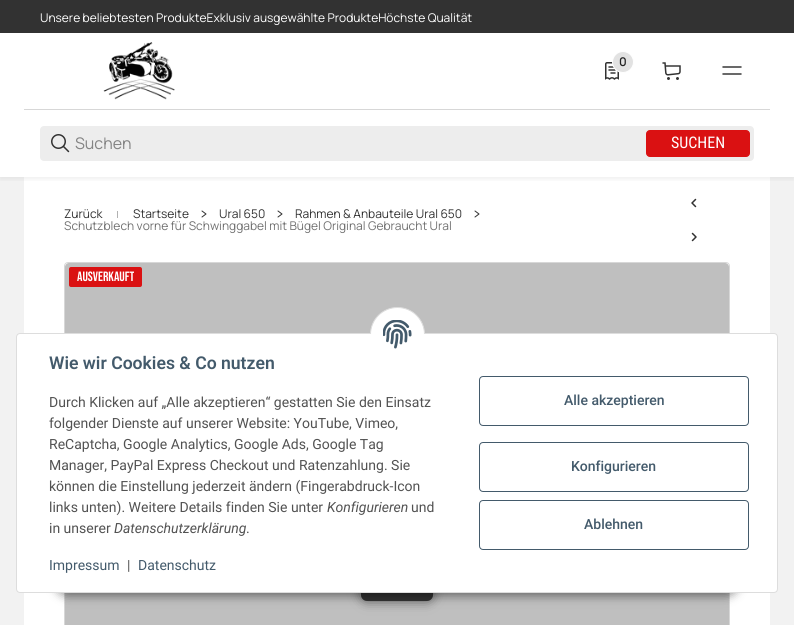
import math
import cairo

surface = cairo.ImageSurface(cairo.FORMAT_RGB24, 794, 625)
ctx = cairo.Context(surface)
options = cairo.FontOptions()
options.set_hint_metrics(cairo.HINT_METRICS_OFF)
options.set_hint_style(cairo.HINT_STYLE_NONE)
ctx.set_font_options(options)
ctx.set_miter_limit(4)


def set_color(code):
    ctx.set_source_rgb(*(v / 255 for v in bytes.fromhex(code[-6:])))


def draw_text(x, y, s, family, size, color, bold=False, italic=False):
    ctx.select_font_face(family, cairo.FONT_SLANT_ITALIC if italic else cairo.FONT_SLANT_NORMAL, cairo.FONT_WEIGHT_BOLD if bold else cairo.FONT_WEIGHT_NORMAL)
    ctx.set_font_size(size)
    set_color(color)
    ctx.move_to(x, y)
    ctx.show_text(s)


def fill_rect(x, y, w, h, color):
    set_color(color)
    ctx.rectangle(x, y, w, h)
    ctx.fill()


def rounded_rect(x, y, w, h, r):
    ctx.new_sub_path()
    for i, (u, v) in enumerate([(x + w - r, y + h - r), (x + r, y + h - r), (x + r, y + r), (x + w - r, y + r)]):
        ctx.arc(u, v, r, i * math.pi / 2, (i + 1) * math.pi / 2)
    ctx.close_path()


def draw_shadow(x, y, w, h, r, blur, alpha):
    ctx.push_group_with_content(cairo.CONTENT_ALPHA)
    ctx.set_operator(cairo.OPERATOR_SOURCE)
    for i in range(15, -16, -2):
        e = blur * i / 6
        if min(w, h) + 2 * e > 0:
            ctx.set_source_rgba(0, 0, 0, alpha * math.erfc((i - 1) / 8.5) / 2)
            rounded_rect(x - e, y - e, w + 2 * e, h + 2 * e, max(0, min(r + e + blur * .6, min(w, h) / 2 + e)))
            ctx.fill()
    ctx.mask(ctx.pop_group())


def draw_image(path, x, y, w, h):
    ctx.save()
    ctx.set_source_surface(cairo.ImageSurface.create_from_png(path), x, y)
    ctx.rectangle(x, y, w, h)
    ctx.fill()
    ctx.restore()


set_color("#f2f2f2")
ctx.paint()
fill_rect(0, 0, 794, 33, "#323232")
draw_text(40, 22, "Unsere beliebtesten ProdukteExklusiv ausgewählte ProdukteHöchste Qualität", "Manrope ExtraLight", 12, "#ffffff")
fill_rect(0, 33, 794, 144, "#ffffff")
draw_image("assets/img1.png", 103, 42, 72, 58)
draw_image("assets/img2.png", 605, 62, 14, 18)
set_color("#e2e2e2")
ctx.arc(623, 62, 10.5, 0, 2 * math.pi)
ctx.fill_preserve()
set_color("#ffffff")
ctx.set_line_width(1)
ctx.stroke()
draw_text(619, 66, "0", "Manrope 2 ExtraLight", 12, "#222222")
draw_image("assets/img3.png", 662, 62, 19, 18)
draw_image("assets/img4.png", 722, 66, 20, 9)
fill_rect(24, 109, 746, 1, "#d7d7d7")
set_color("#ededed")
rounded_rect(40, 126, 714, 35, 4)
ctx.fill()
draw_image("assets/img5.png", 51, 134, 19, 19)
draw_text(75, 149, "Suchen", "Manrope ExtraLight", 16, "#848484")
set_color("#da1112")
rounded_rect(646.5, 130.5, 103, 26, 3.5)
ctx.fill_preserve()
ctx.stroke()
draw_text(671, 148, "SUCHEN", "Roboto Condensed", 16, "#ffffff")
fill_rect(24, 177, 746, 448, "#ffffff")
ctx.save()
ctx.rectangle(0, 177, 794, 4)
ctx.clip()
set_color("#000000")
draw_shadow(0, 169, 794, 10, 0, 3, 0.07)
ctx.restore()
draw_text(64, 218, "Zurück", "Manrope ExtraLight", 12, "#323232")
fill_rect(117, 211, 1, 7, "#b1b1b1")
draw_text(133, 218, "Startseite", "Manrope ExtraLight", 12, "#323232")
ctx.new_path()
ctx.move_to(202, 217)
ctx.line_to(206, 214)
ctx.line_to(202, 211)
ctx.set_line_cap(cairo.LINE_CAP_ROUND)
ctx.set_line_join(cairo.LINE_JOIN_ROUND)
ctx.stroke()
draw_text(219, 218, "Ural 650", "Manrope ExtraLight", 12, "#323232")
ctx.new_path()
ctx.move_to(278, 217)
ctx.line_to(282, 214)
ctx.line_to(278, 211)
ctx.stroke()
draw_text(295, 218, "Rahmen & Anbauteile Ural 650", "Manrope ExtraLight", 12, "#323232")
ctx.new_path()
ctx.move_to(475, 217)
ctx.line_to(479, 214)
ctx.line_to(475, 211)
ctx.stroke()
draw_text(64, 230, "Schutzblech vorne für Schwinggabel mit Bügel Original Gebraucht Ural", "Manrope ExtraLight", 12, "#727272")
ctx.new_path()
ctx.move_to(695.5, 206.5)
ctx.line_to(692, 203)
ctx.line_to(695.5, 199.5)
ctx.move_to(692.5, 240.5)
ctx.line_to(696, 237)
ctx.line_to(692.5, 233.5)
set_color("#323232")
ctx.set_line_width(1.5)
ctx.stroke()
rounded_rect(64.5, 262.5, 665, 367, 3.5)
set_color("#d7d7d7")
ctx.set_line_width(1)
ctx.set_line_cap(cairo.LINE_CAP_BUTT)
ctx.set_line_join(cairo.LINE_JOIN_MITER)
ctx.stroke()
set_color("#bfbfbf")
rounded_rect(65, 263, 664, 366, 4)
ctx.fill()
set_color("#da1112")
rounded_rect(69, 267, 73, 20, 2)
ctx.fill()
draw_text(77, 281, "AUSVERKAUFT", "Bebas Neue", 13.5, "#ffffff")
set_color("#000000")
draw_shadow(361, 543, 72, 58, 6, 6, 0.5)
set_color("#323232")
rounded_rect(361, 543, 72, 58, 6)
ctx.fill()
set_color("#000000")
draw_shadow(55, 564, 684, 32, 16, 5, 0.45)
set_color("#ffffff")
rounded_rect(16.5, 333.5, 761, 259, 3.5)
ctx.fill_preserve()
set_color("#dddddd")
ctx.stroke()
set_color("#ffffff")
ctx.arc(397.5, 334.5, 27, 0, 2 * math.pi)
ctx.fill_preserve()
set_color("#dddddd")
ctx.stroke()
fill_rect(370, 334, 55, 28, "#ffffff")
draw_image("assets/img6.png", 383, 320, 29, 29)
draw_text(49, 369, "Wie wir Cookies & Co nutzen", "Roboto SemiBold", 17.6, "#435a6b")
draw_text(49, 407, "Durch Klicken auf „Alle akzeptieren“ gestatten Sie den Einsatz", "Roboto", 14, "#525252")
draw_text(49, 428, "folgender Dienste auf unserer Website: YouTube, Vimeo,", "Roboto", 14, "#525252")
draw_text(49, 449, "ReCaptcha, Google Analytics, Google Ads, Google Tag", "Roboto", 14, "#525252")
draw_text(49, 470, "Manager, PayPal Express Checkout und Ratenzahlung. Sie", "Roboto", 14, "#525252")
draw_text(49, 491, "können die Einstellung jederzeit ändern (Fingerabdruck-Icon", "Roboto", 14, "#525252")
draw_text(49, 512, "links unten). Weitere Details finden Sie unter", "Roboto", 14, "#525252")
draw_text(327, 512, "Konfigurieren", "Roboto", 14, "#525252", italic=True)
draw_text(411, 512, "und", "Roboto", 14, "#525252")
draw_text(49, 533, "in unserer", "Roboto", 14, "#525252")
draw_text(114, 533, "Datenschutzerklärung", "Roboto", 14, "#525252", italic=True)
draw_text(246, 533, ".", "Roboto", 14, "#525252")
draw_text(49, 570, "Impressum", "Roboto", 14, "#435a6b")
draw_text(127, 570, "|", "Roboto", 14, "#525252")
draw_text(138, 570, "Datenschutz", "Roboto", 14, "#435a6b")
rounded_rect(479.5, 376.5, 269, 49, 3.5)
ctx.stroke()
draw_text(564, 405, "Alle akzeptieren", "Roboto Medium", 14, "#435a6b")
rounded_rect(479.5, 442.5, 269, 49, 3.5)
ctx.stroke()
draw_text(571, 471, "Konfigurieren", "Roboto Medium", 14, "#435a6b")
rounded_rect(479.5, 500.5, 269, 49, 3.5)
ctx.stroke()
draw_text(584, 529, "Ablehnen", "Roboto Medium", 14, "#435a6b")
surface.write_to_png("output.png")
